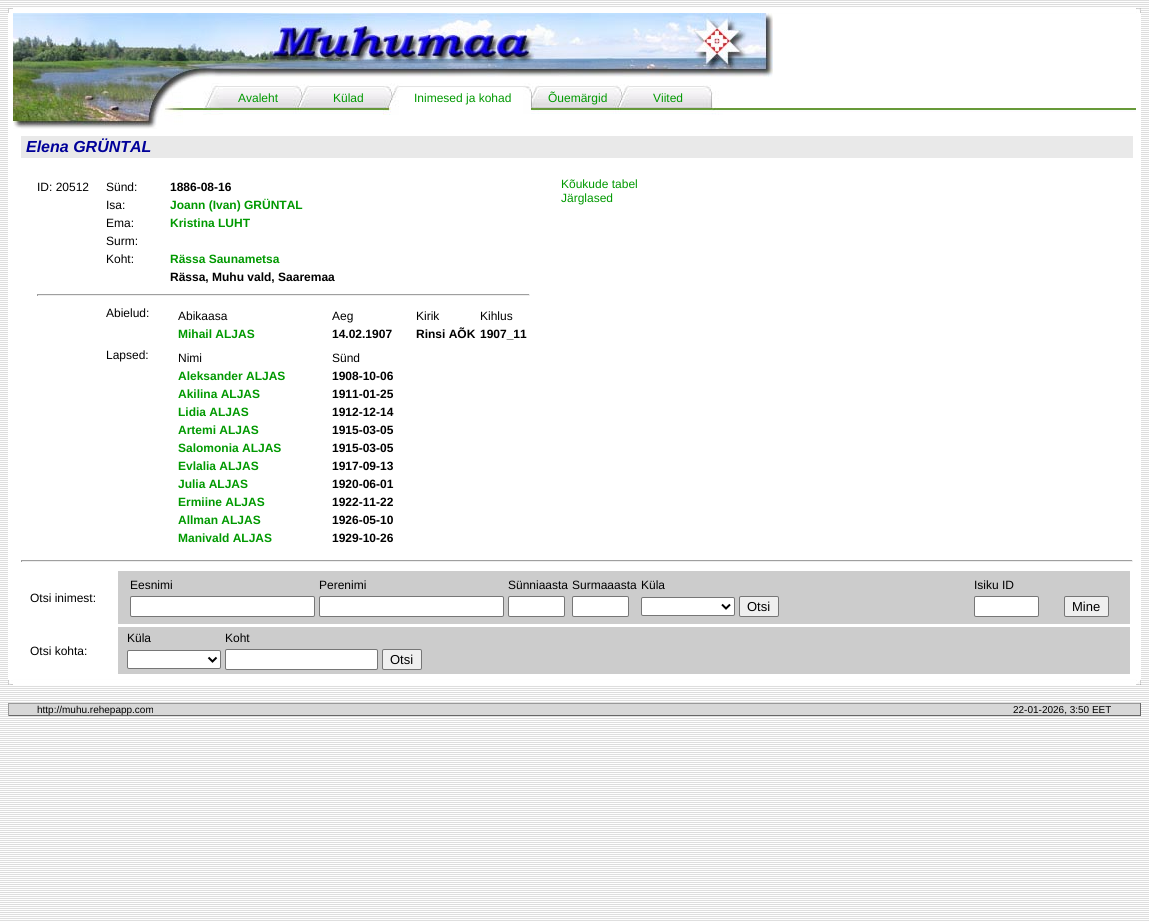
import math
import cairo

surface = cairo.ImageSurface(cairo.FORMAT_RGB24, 1149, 921)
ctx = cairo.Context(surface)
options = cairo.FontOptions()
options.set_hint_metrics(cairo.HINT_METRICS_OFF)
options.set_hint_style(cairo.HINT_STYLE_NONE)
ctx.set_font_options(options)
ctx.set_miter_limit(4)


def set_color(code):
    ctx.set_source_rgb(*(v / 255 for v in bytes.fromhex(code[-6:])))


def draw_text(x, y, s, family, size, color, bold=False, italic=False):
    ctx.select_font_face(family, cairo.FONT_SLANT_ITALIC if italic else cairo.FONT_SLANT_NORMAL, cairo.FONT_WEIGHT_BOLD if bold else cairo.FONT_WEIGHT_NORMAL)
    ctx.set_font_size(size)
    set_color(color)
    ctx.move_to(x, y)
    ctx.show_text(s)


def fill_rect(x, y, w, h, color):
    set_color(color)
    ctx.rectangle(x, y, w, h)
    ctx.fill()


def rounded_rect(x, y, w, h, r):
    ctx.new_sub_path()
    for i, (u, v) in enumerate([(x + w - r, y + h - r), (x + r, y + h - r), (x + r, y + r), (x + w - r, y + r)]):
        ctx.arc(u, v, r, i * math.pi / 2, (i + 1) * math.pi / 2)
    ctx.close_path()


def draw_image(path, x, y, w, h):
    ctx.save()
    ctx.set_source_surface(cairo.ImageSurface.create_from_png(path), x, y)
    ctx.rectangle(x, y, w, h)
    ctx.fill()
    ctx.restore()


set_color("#ffffff")
ctx.paint()
draw_image("assets/img1.png", 0, 0, 1149, 921)
draw_image("assets/img2.png", 8, 8, 5, 5)
fill_rect(13, 8, 1123, 5, "#ffffff")
draw_image("assets/img3.png", 1136, 8, 5, 5)
fill_rect(8, 13, 5, 667, "#ffffff")
fill_rect(13, 14, 1123, 665, "#ffffff")
draw_image("assets/img4.png", 13, 13, 170, 116)
draw_image("assets/img5.png", 183, 13, 590, 69)
draw_image("assets/img6.png", 203, 83, 20, 32)
draw_image("assets/img7.png", 223, 86, 70, 28)
draw_text(238, 102, "Avaleht", "Liberation Sans", 12, "#009900")
draw_image("assets/img8.png", 293, 84, 20, 30)
draw_image("assets/img7.png", 313, 86, 70, 28)
draw_text(333, 102, "Külad", "Liberation Sans", 12, "#009900")
draw_image("assets/img9.png", 383, 83, 20, 32)
fill_rect(403, 86, 120, 1, "#e4e4e4")
draw_text(414, 102, "Inimesed ja kohad", "Liberation Sans", 12, "#009900")
draw_image("assets/img10.png", 523, 83, 20, 31)
draw_image("assets/img7.png", 543, 86, 70, 28)
draw_text(548, 102, "Õuemärgid", "Liberation Sans", 12, "#009900")
draw_image("assets/img8.png", 613, 84, 20, 30)
draw_image("assets/img7.png", 633, 86, 70, 28)
draw_text(653, 102, "Viited", "Liberation Sans", 12, "#009900")
draw_image("assets/img11.png", 703, 85, 20, 30)
draw_image("assets/img12.png", 183, 108, 20, 4)
draw_image("assets/img13.png", 723, 108, 333, 4)
draw_image("assets/img14.png", 1056, 108, 80, 4)
fill_rect(21, 136, 1112, 22, "#e9e9e9")
draw_text(26, 152, "Elena GRÜNTAL", "Liberation Sans", 16, "#000099", bold=True, italic=True)
draw_text(37, 191, "ID: 20512", "Liberation Sans", 12, "#000000")
draw_text(106, 191, "Sünd:", "Liberation Sans", 12, "#000000")
draw_text(170, 191, "1886-08-16", "Liberation Sans", 12, "#000000", bold=True)
draw_text(106, 209, "Isa:", "Liberation Sans", 12, "#000000")
draw_text(170, 209, "Joann (Ivan) GRÜNTAL", "Liberation Sans", 12, "#009900", bold=True)
draw_text(106, 227, "Ema:", "Liberation Sans", 12, "#000000")
draw_text(170, 227, "Kristina LUHT", "Liberation Sans", 12, "#009900", bold=True)
draw_text(106, 245, "Surm:", "Liberation Sans", 12, "#000000")
draw_text(106, 263, "Koht:", "Liberation Sans", 12, "#000000")
draw_text(170, 263, "Rässa Saunametsa", "Liberation Sans", 12, "#009900", bold=True)
draw_text(170, 281, "Rässa, Muhu vald, Saaremaa", "Liberation Sans", 12, "#000000", bold=True)
fill_rect(37, 294, 493, 1, "#9f9f9f")
fill_rect(529, 294, 1, 2, "#eeeeee")
fill_rect(37, 295, 493, 1, "#eeeeee")
fill_rect(37, 294, 1, 2, "#9f9f9f")
draw_text(106, 317, "Abielud:", "Liberation Sans", 12, "#000000")
draw_text(178, 320, "Abikaasa", "Liberation Sans", 12, "#000000")
draw_text(332, 320, "Aeg", "Liberation Sans", 12, "#000000")
draw_text(416, 320, "Kirik", "Liberation Sans", 12, "#000000")
draw_text(480, 320, "Kihlus", "Liberation Sans", 12, "#000000")
draw_text(178, 338, "Mihail ALJAS", "Liberation Sans", 12, "#009900", bold=True)
draw_text(332, 338, "14.02.1907", "Liberation Sans", 12, "#000000", bold=True)
draw_text(416, 338, "Rinsi AÕK", "Liberation Sans", 12, "#000000", bold=True)
draw_text(480, 338, "1907_11", "Liberation Sans", 12, "#000000", bold=True)
draw_text(106, 359, "Lapsed:", "Liberation Sans", 12, "#000000")
draw_text(178, 362, "Nimi", "Liberation Sans", 12, "#000000")
draw_text(332, 362, "Sünd", "Liberation Sans", 12, "#000000")
draw_text(178, 380, "Aleksander ALJAS", "Liberation Sans", 12, "#009900", bold=True)
draw_text(332, 380, "1908-10-06", "Liberation Sans", 12, "#000000", bold=True)
draw_text(178, 398, "Akilina ALJAS", "Liberation Sans", 12, "#009900", bold=True)
draw_text(332, 398, "1911-01-25", "Liberation Sans", 12, "#000000", bold=True)
draw_text(178, 416, "Lidia ALJAS", "Liberation Sans", 12, "#009900", bold=True)
draw_text(332, 416, "1912-12-14", "Liberation Sans", 12, "#000000", bold=True)
draw_text(178, 434, "Artemi ALJAS", "Liberation Sans", 12, "#009900", bold=True)
draw_text(332, 434, "1915-03-05", "Liberation Sans", 12, "#000000", bold=True)
draw_text(178, 452, "Salomonia ALJAS", "Liberation Sans", 12, "#009900", bold=True)
draw_text(332, 452, "1915-03-05", "Liberation Sans", 12, "#000000", bold=True)
draw_text(178, 470, "Evlalia ALJAS", "Liberation Sans", 12, "#009900", bold=True)
draw_text(332, 470, "1917-09-13", "Liberation Sans", 12, "#000000", bold=True)
draw_text(178, 488, "Julia ALJAS", "Liberation Sans", 12, "#009900", bold=True)
draw_text(332, 488, "1920-06-01", "Liberation Sans", 12, "#000000", bold=True)
draw_text(178, 506, "Ermiine ALJAS", "Liberation Sans", 12, "#009900", bold=True)
draw_text(332, 506, "1922-11-22", "Liberation Sans", 12, "#000000", bold=True)
draw_text(178, 524, "Allman ALJAS", "Liberation Sans", 12, "#009900", bold=True)
draw_text(332, 524, "1926-05-10", "Liberation Sans", 12, "#000000", bold=True)
draw_text(178, 542, "Manivald ALJAS", "Liberation Sans", 12, "#009900", bold=True)
draw_text(332, 542, "1929-10-26", "Liberation Sans", 12, "#000000", bold=True)
draw_text(561, 188, "Kõukude tabel", "Liberation Sans", 12, "#009900")
draw_text(561, 202, "Järglased", "Liberation Sans", 12, "#009900")
fill_rect(21, 560, 1112, 1, "#9f9f9f")
fill_rect(1132, 560, 1, 2, "#eeeeee")
fill_rect(21, 561, 1112, 1, "#eeeeee")
fill_rect(21, 560, 1, 2, "#9f9f9f")
draw_text(30, 602, "Otsi inimest:", "Liberation Sans", 12, "#000000")
fill_rect(118, 571, 1012, 53, "#cccccc")
draw_text(130, 589, "Eesnimi", "Liberation Sans", 12, "#000000")
draw_text(319, 589, "Perenimi", "Liberation Sans", 12, "#000000")
draw_text(508, 589, "Sünniaasta", "Liberation Sans", 12, "#000000")
draw_text(572, 589, "Surmaaasta", "Liberation Sans", 12, "#000000")
draw_text(641, 589, "Küla", "Liberation Sans", 12, "#000000")
set_color("#ffffff")
rounded_rect(130.5, 596.5, 184, 20, 1.5)
ctx.fill_preserve()
set_color("#767676")
ctx.set_line_width(1)
ctx.stroke()
set_color("#ffffff")
rounded_rect(319.5, 596.5, 184, 20, 1.5)
ctx.fill_preserve()
set_color("#767676")
ctx.stroke()
set_color("#ffffff")
rounded_rect(508.5, 596.5, 56, 20, 1.5)
ctx.fill_preserve()
set_color("#767676")
ctx.stroke()
set_color("#ffffff")
rounded_rect(572.5, 596.5, 56, 20, 1.5)
ctx.fill_preserve()
set_color("#767676")
ctx.stroke()
set_color("#ffffff")
rounded_rect(641.5, 597.5, 93, 18, 1.5)
ctx.fill_preserve()
set_color("#767676")
ctx.stroke()
ctx.new_path()
ctx.move_to(722, 604.5)
ctx.line_to(726, 608.5)
ctx.line_to(730, 604.5)
set_color("#000000")
ctx.set_line_width(2)
ctx.stroke()
set_color("#efefef")
rounded_rect(739.5, 596.5, 39, 20, 1.5)
ctx.fill_preserve()
set_color("#767676")
ctx.set_line_width(1)
ctx.stroke()
draw_text(747, 611, "Otsi", "Liberation Sans", 13, "#000000")
draw_text(974, 589, "Isiku ID", "Liberation Sans", 12, "#000000")
set_color("#ffffff")
rounded_rect(974.5, 596.5, 64, 20, 1.5)
ctx.fill_preserve()
set_color("#767676")
ctx.stroke()
set_color("#efefef")
rounded_rect(1064.5, 596.5, 44, 20, 1.5)
ctx.fill_preserve()
set_color("#767676")
ctx.stroke()
draw_text(1072, 611, "Mine", "Liberation Sans", 13, "#000000")
draw_text(30, 655, "Otsi kohta:", "Liberation Sans", 12, "#000000")
fill_rect(118, 627, 1012, 47, "#cccccc")
draw_text(127, 642, "Küla", "Liberation Sans", 12, "#000000")
draw_text(225, 642, "Koht", "Liberation Sans", 12, "#000000")
set_color("#ffffff")
rounded_rect(127.5, 650.5, 93, 18, 1.5)
ctx.fill_preserve()
set_color("#767676")
ctx.stroke()
ctx.new_path()
ctx.move_to(208.5, 657.5)
ctx.line_to(212.5, 661.5)
ctx.line_to(216.5, 657.5)
set_color("#000000")
ctx.set_line_width(2)
ctx.stroke()
set_color("#ffffff")
rounded_rect(225.5, 649.5, 152, 20, 1.5)
ctx.fill_preserve()
set_color("#767676")
ctx.set_line_width(1)
ctx.stroke()
set_color("#efefef")
rounded_rect(382.5, 649.5, 39, 20, 1.5)
ctx.fill_preserve()
set_color("#767676")
ctx.stroke()
draw_text(390, 664, "Otsi", "Liberation Sans", 13, "#000000")
fill_rect(1136, 13, 5, 667, "#ffffff")
draw_image("assets/img15.png", 8, 680, 5, 5)
fill_rect(13, 680, 1123, 5, "#ffffff")
draw_image("assets/img16.png", 1136, 680, 5, 5)
fill_rect(9, 704, 1131, 11, "#d7d7d7")
fill_rect(8, 703, 1133, 1, "#999999")
fill_rect(1140, 703, 1, 13, "#666666")
fill_rect(8, 715, 1133, 1, "#666666")
fill_rect(8, 703, 1, 13, "#999999")
draw_text(37, 713, "http://muhu.rehepapp.com", "Liberation Sans", 10, "#000000")
draw_text(1013, 713, "22-01-2026, 3:50 EET", "Liberation Sans", 10, "#000000")
surface.write_to_png("output.png")
